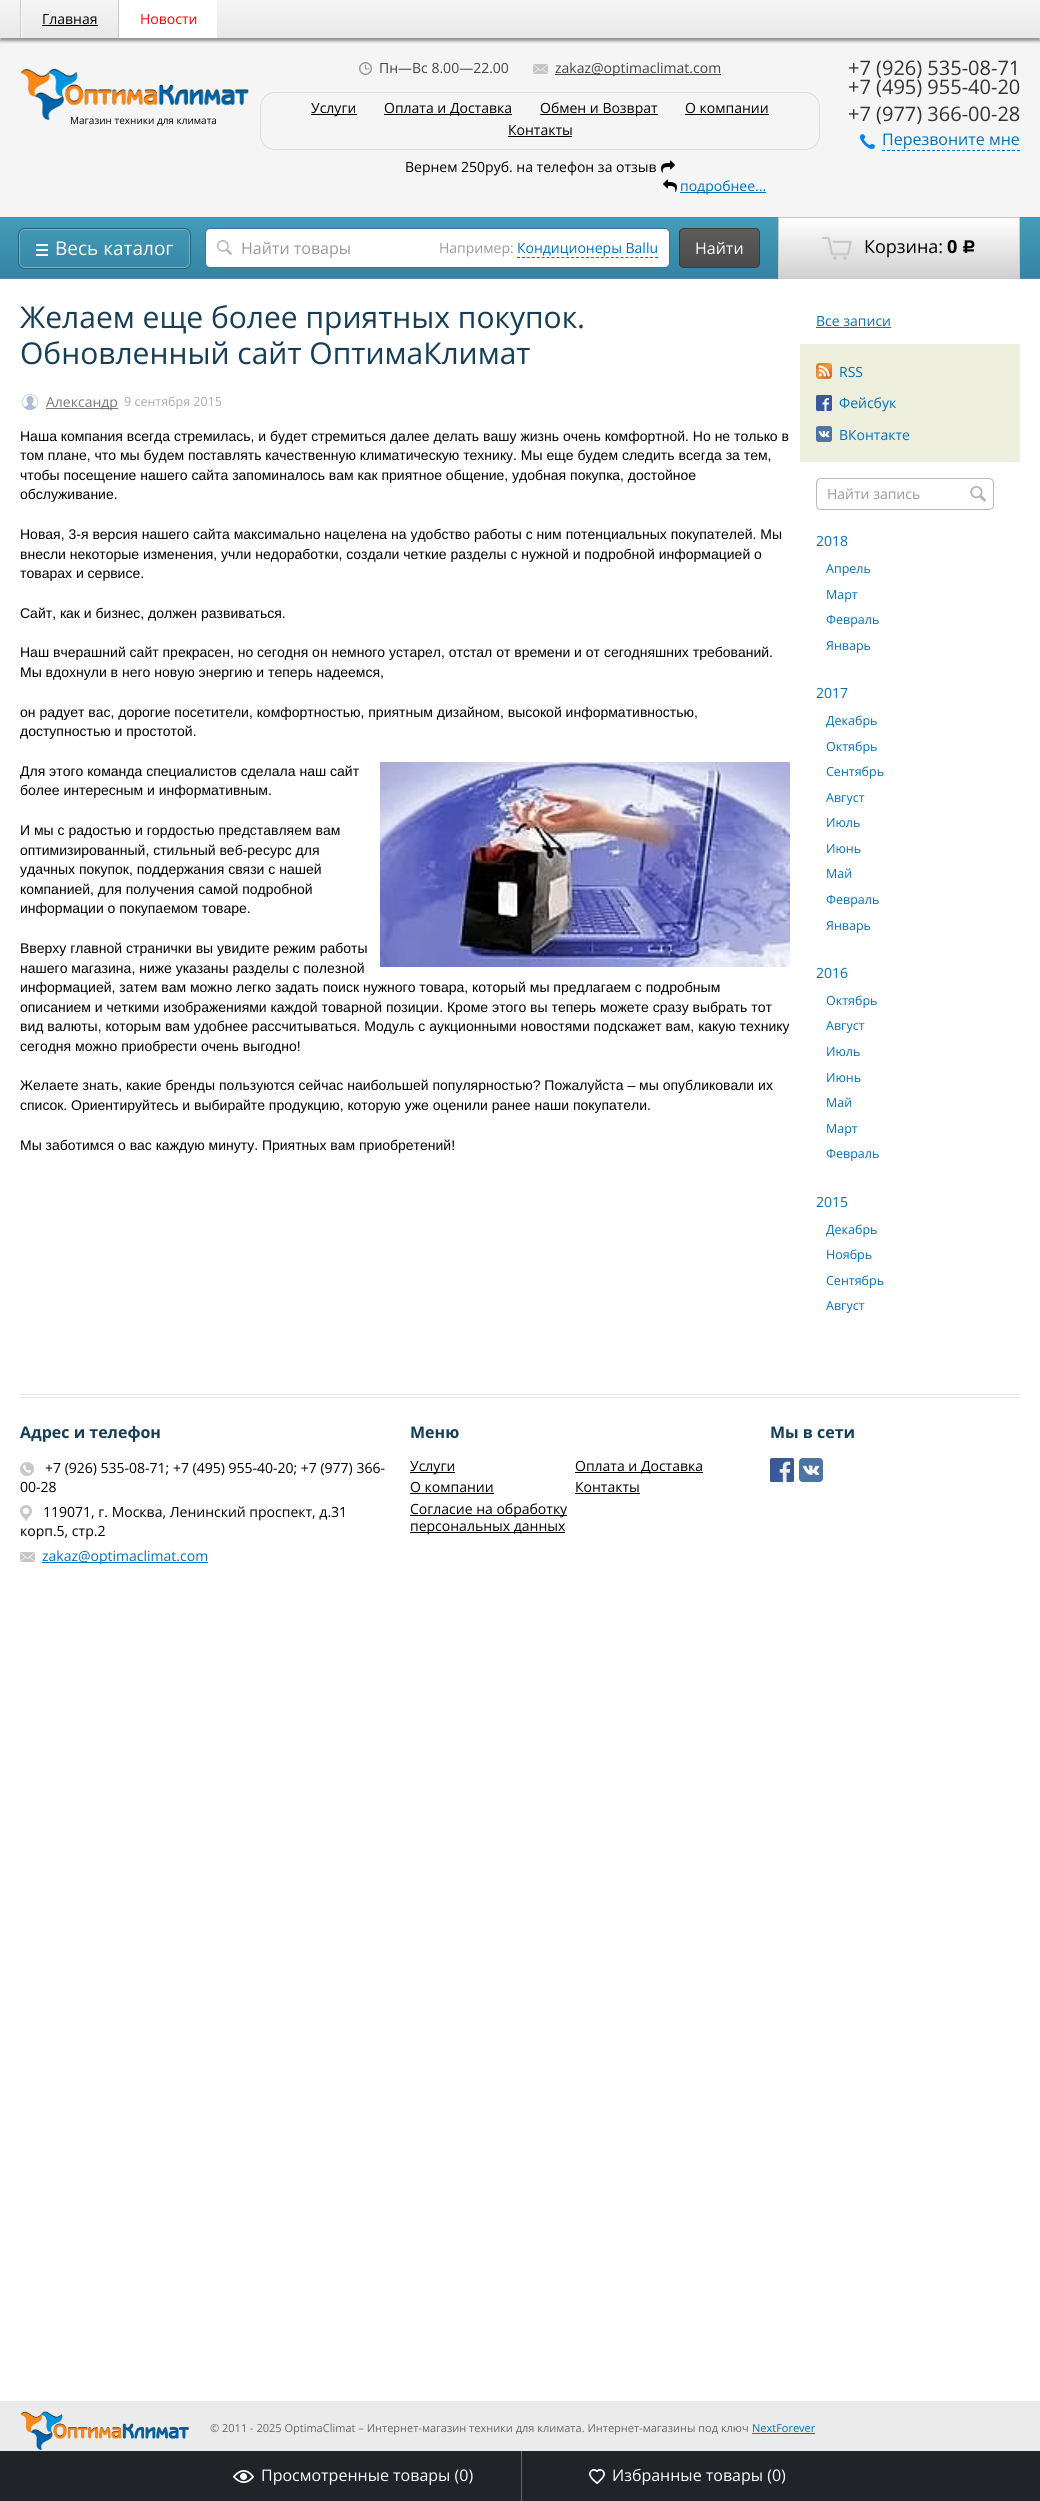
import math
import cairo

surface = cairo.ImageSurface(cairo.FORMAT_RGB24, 1040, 2501)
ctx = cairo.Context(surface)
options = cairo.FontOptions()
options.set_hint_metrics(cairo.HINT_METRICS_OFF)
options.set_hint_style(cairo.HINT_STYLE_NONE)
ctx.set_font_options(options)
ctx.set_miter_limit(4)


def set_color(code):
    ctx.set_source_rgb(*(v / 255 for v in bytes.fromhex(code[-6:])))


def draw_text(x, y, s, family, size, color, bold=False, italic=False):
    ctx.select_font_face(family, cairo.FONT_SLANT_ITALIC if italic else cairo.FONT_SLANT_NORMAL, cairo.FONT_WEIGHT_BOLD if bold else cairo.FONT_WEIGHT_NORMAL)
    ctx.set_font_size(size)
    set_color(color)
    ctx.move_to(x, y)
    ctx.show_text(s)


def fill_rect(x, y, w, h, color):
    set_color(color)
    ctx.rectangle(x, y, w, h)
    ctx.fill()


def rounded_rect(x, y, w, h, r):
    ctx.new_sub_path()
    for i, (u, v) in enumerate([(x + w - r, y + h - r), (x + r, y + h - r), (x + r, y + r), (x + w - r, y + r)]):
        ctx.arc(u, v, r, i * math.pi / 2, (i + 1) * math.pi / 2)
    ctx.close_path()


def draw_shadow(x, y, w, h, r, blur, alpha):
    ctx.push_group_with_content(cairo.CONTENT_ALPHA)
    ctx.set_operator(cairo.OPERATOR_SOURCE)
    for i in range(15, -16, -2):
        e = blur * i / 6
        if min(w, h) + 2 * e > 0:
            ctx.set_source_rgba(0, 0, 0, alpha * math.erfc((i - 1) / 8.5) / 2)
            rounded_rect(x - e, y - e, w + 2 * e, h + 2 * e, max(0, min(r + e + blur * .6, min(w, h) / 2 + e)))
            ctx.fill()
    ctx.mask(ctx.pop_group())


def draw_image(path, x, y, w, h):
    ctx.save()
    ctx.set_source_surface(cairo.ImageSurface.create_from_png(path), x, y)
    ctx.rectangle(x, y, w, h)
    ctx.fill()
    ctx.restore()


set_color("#ffffff")
ctx.paint()
fill_rect(0, 38, 1040, 179, "#f5f5f5")
set_color("#666666")
draw_shadow(0, 3, 1040, 38, 0, 1.5, 0.7)
gradient = cairo.LinearGradient(520, 0, 520, 38)
gradient.add_color_stop_rgba(0, 0.961, 0.961, 0.961, 1)
gradient.add_color_stop_rgba(1, 0.91, 0.91, 0.91, 1)
ctx.set_source(gradient)
ctx.rectangle(0, 0, 1040, 38)
ctx.fill()
fill_rect(20, 0, 1, 38, "#cbcbcb")
fill_rect(21, 0, 1, 38, "#fbfbfb")
draw_text(42, 24, "Главная", "Open Sans", 14, "#000000")
fill_rect(42, 25, 56, 1, "#000000")
fill_rect(118, 0, 1, 38, "#cbcbcb")
fill_rect(120, 0, 97, 38, "#ffffff")
fill_rect(119, 0, 1, 38, "#fbfbfb")
draw_text(140, 24, "Новости", "Open Sans", 14, "#ff0000")
draw_image("assets/img1.png", 20, 68, 229, 52)
draw_text(70, 124, "Магазин техники для климата", "Open Sans", 10, "#000000")
draw_image("assets/img2.png", 359, 62, 13, 13)
draw_text(379, 73, "Пн—Вс 8.00—22.00", "Open Sans", 14, "#444444")
draw_image("assets/img3.png", 533, 64, 15, 10)
fill_rect(555, 74, 166, 1, "#444444")
draw_text(555, 73, "zakaz@optimaclimat.com", "Open Sans", 14, "#444444")
rounded_rect(260.5, 92.5, 559, 57, 14.5)
set_color("#dcdcdc")
ctx.set_line_width(1)
ctx.stroke()
fill_rect(311, 114, 46, 1, "#000000")
draw_text(311, 113, "Услуги", "Open Sans", 14, "#000000")
fill_rect(384, 114, 128, 1, "#000000")
draw_text(384, 113, "Оплата и Доставка", "Open Sans", 14, "#000000")
fill_rect(540, 114, 118, 1, "#000000")
draw_text(540, 113, "Обмен и Возврат", "Open Sans", 14, "#000000")
draw_text(685, 113, "О компании", "Open Sans", 14, "#000000")
fill_rect(685, 114, 84, 1, "#000000")
draw_text(508, 135, "Контакты", "Open Sans", 14, "#000000")
fill_rect(508, 136, 64, 1, "#000000")
draw_text(405, 172, "Вернем 250руб. на телефон за отзыв", "Open Sans", 14, "#000000")
draw_image("assets/img4.png", 661, 160, 14, 13)
draw_image("assets/img5.png", 663, 179, 14, 13)
fill_rect(680, 192, 86, 1, "#0072bb")
draw_text(680, 191, "подробнее...", "Open Sans", 14, "#0072bb")
draw_text(848, 75, "+7 (926) 535-08-71", "Open Sans", 20, "#333333")
draw_text(848, 94, "+7 (495) 955-40-20", "Open Sans", 20, "#333333")
draw_text(848, 121, "+7 (977) 366-00-28", "Open Sans", 20, "#333333")
draw_image("assets/img6.png", 860, 134, 15, 15)
draw_text(882, 145, "Перезвоните мне", "Open Sans", 16, "#0072bb")
ctx.new_path()
ctx.move_to(882, 150.5)
ctx.line_to(1020, 150.5)
ctx.set_dash([3, 2])
ctx.stroke()
gradient = cairo.LinearGradient(520, 218, 520, 278)
gradient.add_color_stop_rgba(0, 0.263, 0.616, 0.722, 1)
gradient.add_color_stop_rgba(1, 0.208, 0.514, 0.647, 1)
ctx.set_source(gradient)
ctx.rectangle(0, 218, 1040, 60)
ctx.fill()
fill_rect(0, 217, 1040, 1, "#4f89b2")
fill_rect(0, 278, 1040, 1, "#4f89b2")
rounded_rect(19, 229, 171, 39, 6)
set_color("#275f77")
ctx.set_line_width(2)
ctx.set_dash([])
ctx.stroke()
rounded_rect(19.5, 229.5, 170, 38, 5.5)
set_color("#7eb2c6")
ctx.set_line_width(1)
ctx.stroke()
draw_image("assets/img7.png", 36, 244, 12, 12)
draw_text(55, 255, "Весь каталог", "Open Sans", 19, "#ffffff")
rounded_rect(205.5, 228.5, 464, 39, 4.5)
ctx.fill_preserve()
set_color("#3175a6")
ctx.stroke()
draw_image("assets/img8.png", 217, 240, 15, 15)
draw_text(241, 254, "Найти товары", "Open Sans", 16, "#999999")
draw_text(439, 253, "Например:", "Open Sans", 14, "#999999")
draw_text(517, 253, "Кондиционеры Ballu", "Open Sans", 14, "#0072bb")
ctx.new_path()
ctx.move_to(517, 257.5)
ctx.line_to(658, 257.5)
ctx.set_dash([3, 1.93])
ctx.stroke()
ctx.save()
rounded_rect(679, 228, 81, 40, 5)
ctx.clip()
gradient = cairo.LinearGradient(720, 229, 720, 267)
gradient.add_color_stop_rgba(0, 0.365, 0.365, 0.365, 1)
gradient.add_color_stop_rgba(1, 0.29, 0.29, 0.29, 1)
ctx.set_source(gradient)
ctx.rectangle(679, 229, 81, 38)
ctx.fill()
ctx.restore()
rounded_rect(679.5, 228.5, 80, 39, 4.5)
set_color("#3b3b3b")
ctx.set_dash([])
ctx.stroke()
draw_text(695, 254, "Найти", "Open Sans", 16, "#ffffff")
gradient = cairo.LinearGradient(899, 218, 899, 278)
gradient.add_color_stop_rgba(0, 1, 1, 1, 1)
gradient.add_color_stop_rgba(1, 0.816, 0.816, 0.816, 1)
ctx.set_source(gradient)
ctx.rectangle(779, 218, 240, 60)
ctx.fill()
ctx.rectangle(778.5, 217.5, 241, 61)
set_color("#c9c9c9")
ctx.stroke()
draw_image("assets/img9.png", 822, 237, 30, 23)
draw_text(864, 253, "Корзина:", "Open Sans", 18, "#000000")
draw_text(947, 253, "0", "Open Sans", 18, "#000000", bold=True)
draw_text(962, 253, "Р", "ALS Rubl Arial", 18, "#000000", bold=True)
draw_text(20, 328, "Желаем еще более приятных покупок.", "Open Sans", 30, "#163e56")
draw_text(20, 364, "Обновленный сайт ОптимаКлимат", "Open Sans", 30, "#163e56")
draw_image("assets/img10.png", 21, 392, 18, 19)
fill_rect(46, 408, 72, 1, "#777777")
draw_text(46, 407, "Александр", "Open Sans", 14, "#777777")
draw_text(124, 406, "9 сентября 2015", "Open Sans", 12.5, "#aaaaaa")
draw_text(20, 441, "Наша компания всегда стремилась, и будет стремиться далее делать вашу жизнь очень комфортной. Но не только в", "Liberation Sans", 14, "#000000")
draw_text(20, 460, "том плане, что мы будем поставлять качественную климатическую технику. Мы еще будем следить всегда за тем,", "Liberation Sans", 14, "#000000")
draw_text(20, 480, "чтобы посещение нашего сайта запоминалось вам как приятное общение, удобная покупка, достойное", "Liberation Sans", 14, "#000000")
draw_text(20, 499, "обслуживание.", "Liberation Sans", 14, "#000000")
draw_text(20, 539, "Новая, 3-я версия нашего сайта максимально нацелена на удобство работы с ним потенциальных покупателей. Мы", "Liberation Sans", 14, "#000000")
draw_text(20, 559, "внесли некоторые изменения, учли недоработки, создали четкие разделы с нужной и подробной информацией о", "Liberation Sans", 14, "#000000")
draw_text(20, 578, "товарах и сервисе.", "Liberation Sans", 14, "#000000")
draw_text(20, 618, "Сайт, как и бизнес, должен развиваться.", "Liberation Sans", 14, "#000000")
draw_text(20, 657, "Наш вчерашний сайт прекрасен, но сегодня он немного устарел, отстал от времени и от сегодняшних требований.", "Liberation Sans", 14, "#000000")
draw_text(20, 677, "Мы вдохнули в него новую энергию и теперь надеемся,", "Liberation Sans", 14, "#000000")
draw_text(20, 717, "он радует вас, дорогие посетители, комфортностью, приятным дизайном, высокой информативностью,", "Liberation Sans", 14, "#000000")
draw_text(20, 736, "доступностью и простотой.", "Liberation Sans", 14, "#000000")
draw_text(20, 776, "Для этого команда специалистов сделала наш сайт", "Liberation Sans", 14, "#000000")
draw_text(20, 795, "более интересным и информативным.", "Liberation Sans", 14, "#000000")
draw_image("assets/img11.png", 380, 762, 410, 205)
draw_text(20, 835, "И мы с радостью и гордостью представляем вам", "Liberation Sans", 14, "#000000")
draw_text(20, 855, "оптимизированный, стильный веб-ресурс для", "Liberation Sans", 14, "#000000")
draw_text(20, 874, "удачных покупок, поддержания связи с нашей", "Liberation Sans", 14, "#000000")
draw_text(20, 894, "компанией, для получения самой подробной", "Liberation Sans", 14, "#000000")
draw_text(20, 913, "информации о покупаемом товаре.", "Liberation Sans", 14, "#000000")
draw_text(20, 953, "Вверху главной странички вы увидите режим работы", "Liberation Sans", 14, "#000000")
draw_text(20, 973, "нашего магазина, ниже указаны разделы с полезной", "Liberation Sans", 14, "#000000")
draw_text(20, 992, "информацией, затем вам можно легко задать поиск нужного товара, который мы предлагаем с подробным", "Liberation Sans", 14, "#000000")
draw_text(20, 1012, "описанием и четкими изображениями каждой товарной позиции. Кроме этого вы теперь можете сразу выбрать тот", "Liberation Sans", 14, "#000000")
draw_text(20, 1031, "вид валюты, которым вам удобнее рассчитываться. Модуль с аукционными новостями подскажет вам, какую технику", "Liberation Sans", 14, "#000000")
draw_text(20, 1051, "сегодня можно приобрести очень выгодно!", "Liberation Sans", 14, "#000000")
draw_text(20, 1090, "Желаете знать, какие бренды пользуются сейчас наибольшей популярностью? Пожалуйста – мы опубликовали их", "Liberation Sans", 14, "#000000")
draw_text(20, 1110, "список. Ориентируйтесь и выбирайте продукцию, которую уже оценили ранее наши покупатели.", "Liberation Sans", 14, "#000000")
draw_text(20, 1150, "Мы заботимся о вас каждую минуту. Приятных вам приобретений!", "Liberation Sans", 14, "#000000")
draw_text(816, 326, "Все записи", "Open Sans", 14, "#0072bb")
fill_rect(816, 327, 75, 1, "#0072bb")
fill_rect(800, 344, 220, 118, "#eeeedd")
draw_image("assets/img12.png", 816, 363, 16, 16)
draw_text(839, 377, "RSS", "Open Sans", 14, "#0072bb")
draw_image("assets/img13.png", 816, 395, 16, 16)
draw_text(839, 408, "Фейсбук", "Open Sans", 14, "#0072bb")
draw_image("assets/img14.png", 816, 426, 16, 16)
draw_text(839, 440, "ВКонтакте", "Open Sans", 14, "#0072bb")
rounded_rect(816.5, 478.5, 177, 31, 4.5)
set_color("#bababa")
ctx.stroke()
draw_text(827, 499, "Найти запись", "Open Sans", 14, "#999999")
draw_image("assets/img15.png", 970, 486, 16, 16)
draw_text(816, 546, "2018", "Open Sans", 14, "#0072bb")
draw_text(826, 573, "Апрель", "Open Sans", 12.5, "#0072bb")
draw_text(826, 599, "Март", "Open Sans", 12.5, "#0072bb")
draw_text(826, 624, "Февраль", "Open Sans", 12.5, "#0072bb")
draw_text(826, 650, "Январь", "Open Sans", 12.5, "#0072bb")
draw_text(816, 698, "2017", "Open Sans", 14, "#0072bb")
draw_text(826, 725, "Декабрь", "Open Sans", 12.5, "#0072bb")
draw_text(826, 751, "Октябрь", "Open Sans", 12.5, "#0072bb")
draw_text(826, 776, "Сентябрь", "Open Sans", 12.5, "#0072bb")
draw_text(826, 802, "Август", "Open Sans", 12.5, "#0072bb")
draw_text(826, 827, "Июль", "Open Sans", 12.5, "#0072bb")
draw_text(826, 853, "Июнь", "Open Sans", 12.5, "#0072bb")
draw_text(826, 878, "Май", "Open Sans", 12.5, "#0072bb")
draw_text(826, 904, "Февраль", "Open Sans", 12.5, "#0072bb")
draw_text(826, 930, "Январь", "Open Sans", 12.5, "#0072bb")
draw_text(816, 978, "2016", "Open Sans", 14, "#0072bb")
draw_text(826, 1005, "Октябрь", "Open Sans", 12.5, "#0072bb")
draw_text(826, 1030, "Август", "Open Sans", 12.5, "#0072bb")
draw_text(826, 1056, "Июль", "Open Sans", 12.5, "#0072bb")
draw_text(826, 1082, "Июнь", "Open Sans", 12.5, "#0072bb")
draw_text(826, 1107, "Май", "Open Sans", 12.5, "#0072bb")
draw_text(826, 1133, "Март", "Open Sans", 12.5, "#0072bb")
draw_text(826, 1158, "Февраль", "Open Sans", 12.5, "#0072bb")
draw_text(816, 1207, "2015", "Open Sans", 14, "#0072bb")
draw_text(826, 1234, "Декабрь", "Open Sans", 12.5, "#0072bb")
draw_text(826, 1259, "Ноябрь", "Open Sans", 12.5, "#0072bb")
draw_text(826, 1285, "Сентябрь", "Open Sans", 12.5, "#0072bb")
draw_text(826, 1310, "Август", "Open Sans", 12.5, "#0072bb")
fill_rect(20, 1394, 1000, 1, "#e2e3e3")
fill_rect(20, 1397, 1000, 1, "#e2e3e3")
draw_text(20, 1438, "Адрес и телефон", "Open Sans", 16, "#163e56", bold=True)
draw_image("assets/img16.png", 20, 1462, 14, 14)
draw_text(45, 1473, "+7 (926) 535-08-71; +7 (495) 955-40-20; +7 (977) 366-", "Open Sans", 14, "#000000")
draw_text(20, 1492, "00-28", "Open Sans", 14, "#000000")
draw_image("assets/img17.png", 20, 1505, 12, 16)
draw_text(43, 1517, "119071, г. Москва, Ленинский проспект, д.31", "Open Sans", 14, "#000000")
draw_text(20, 1536, "корп.5, стр.2", "Open Sans", 14, "#000000")
draw_image("assets/img18.png", 20, 1552, 15, 10)
fill_rect(42, 1562, 166, 1, "#0072bb")
draw_text(42, 1561, "zakaz@optimaclimat.com", "Open Sans", 14, "#0072bb")
draw_text(410, 1438, "Меню", "Open Sans", 16, "#163e56", bold=True)
fill_rect(410, 1472, 45, 1, "#000000")
draw_text(410, 1471, "Услуги", "Open Sans", 14, "#000000")
fill_rect(575, 1472, 128, 1, "#000000")
draw_text(575, 1471, "Оплата и Доставка", "Open Sans", 14, "#000000")
draw_text(410, 1492, "О компании", "Open Sans", 14, "#000000")
fill_rect(410, 1493, 84, 1, "#000000")
draw_text(575, 1492, "Контакты", "Open Sans", 14, "#000000")
fill_rect(575, 1493, 65, 1, "#000000")
fill_rect(410, 1515, 157, 1, "#000000")
draw_text(410, 1514, "Согласие на обработку", "Open Sans", 14, "#000000")
fill_rect(410, 1532, 155, 1, "#000000")
draw_text(410, 1531, "персональных данных", "Open Sans", 14, "#000000")
draw_text(770, 1438, "Мы в сети", "Open Sans", 16, "#163e56", bold=True)
draw_image("assets/img19.png", 770, 1458, 24, 24)
draw_image("assets/img20.png", 799, 1458, 24, 24)
fill_rect(0, 2401, 1040, 50, "#ebebeb")
draw_image("assets/img21.png", 20, 2411, 169, 39)
draw_text(210, 2432, "© 2011 - 2025 OptimaClimat – Интернет-магазин техники для климата. Интернет-магазины под ключ", "Open Sans", 11, "#666666")
draw_text(752, 2432, "NextForever", "Open Sans", 11, "#0072bb")
fill_rect(752, 2433, 63, 1, "#0072bb")
fill_rect(0, 2451, 1040, 50, "#202327")
draw_image("assets/img22.png", 233, 2470, 21, 13)
draw_text(261, 2481, "Просмотренные товары (0)", "Open Sans", 16, "#ffffff")
fill_rect(521, 2451, 1, 50, "#666666")
draw_image("assets/img23.png", 589, 2469, 16, 15)
draw_text(612, 2481, "Избранные товары (0)", "Open Sans", 16, "#ffffff")
surface.write_to_png("output.png")
